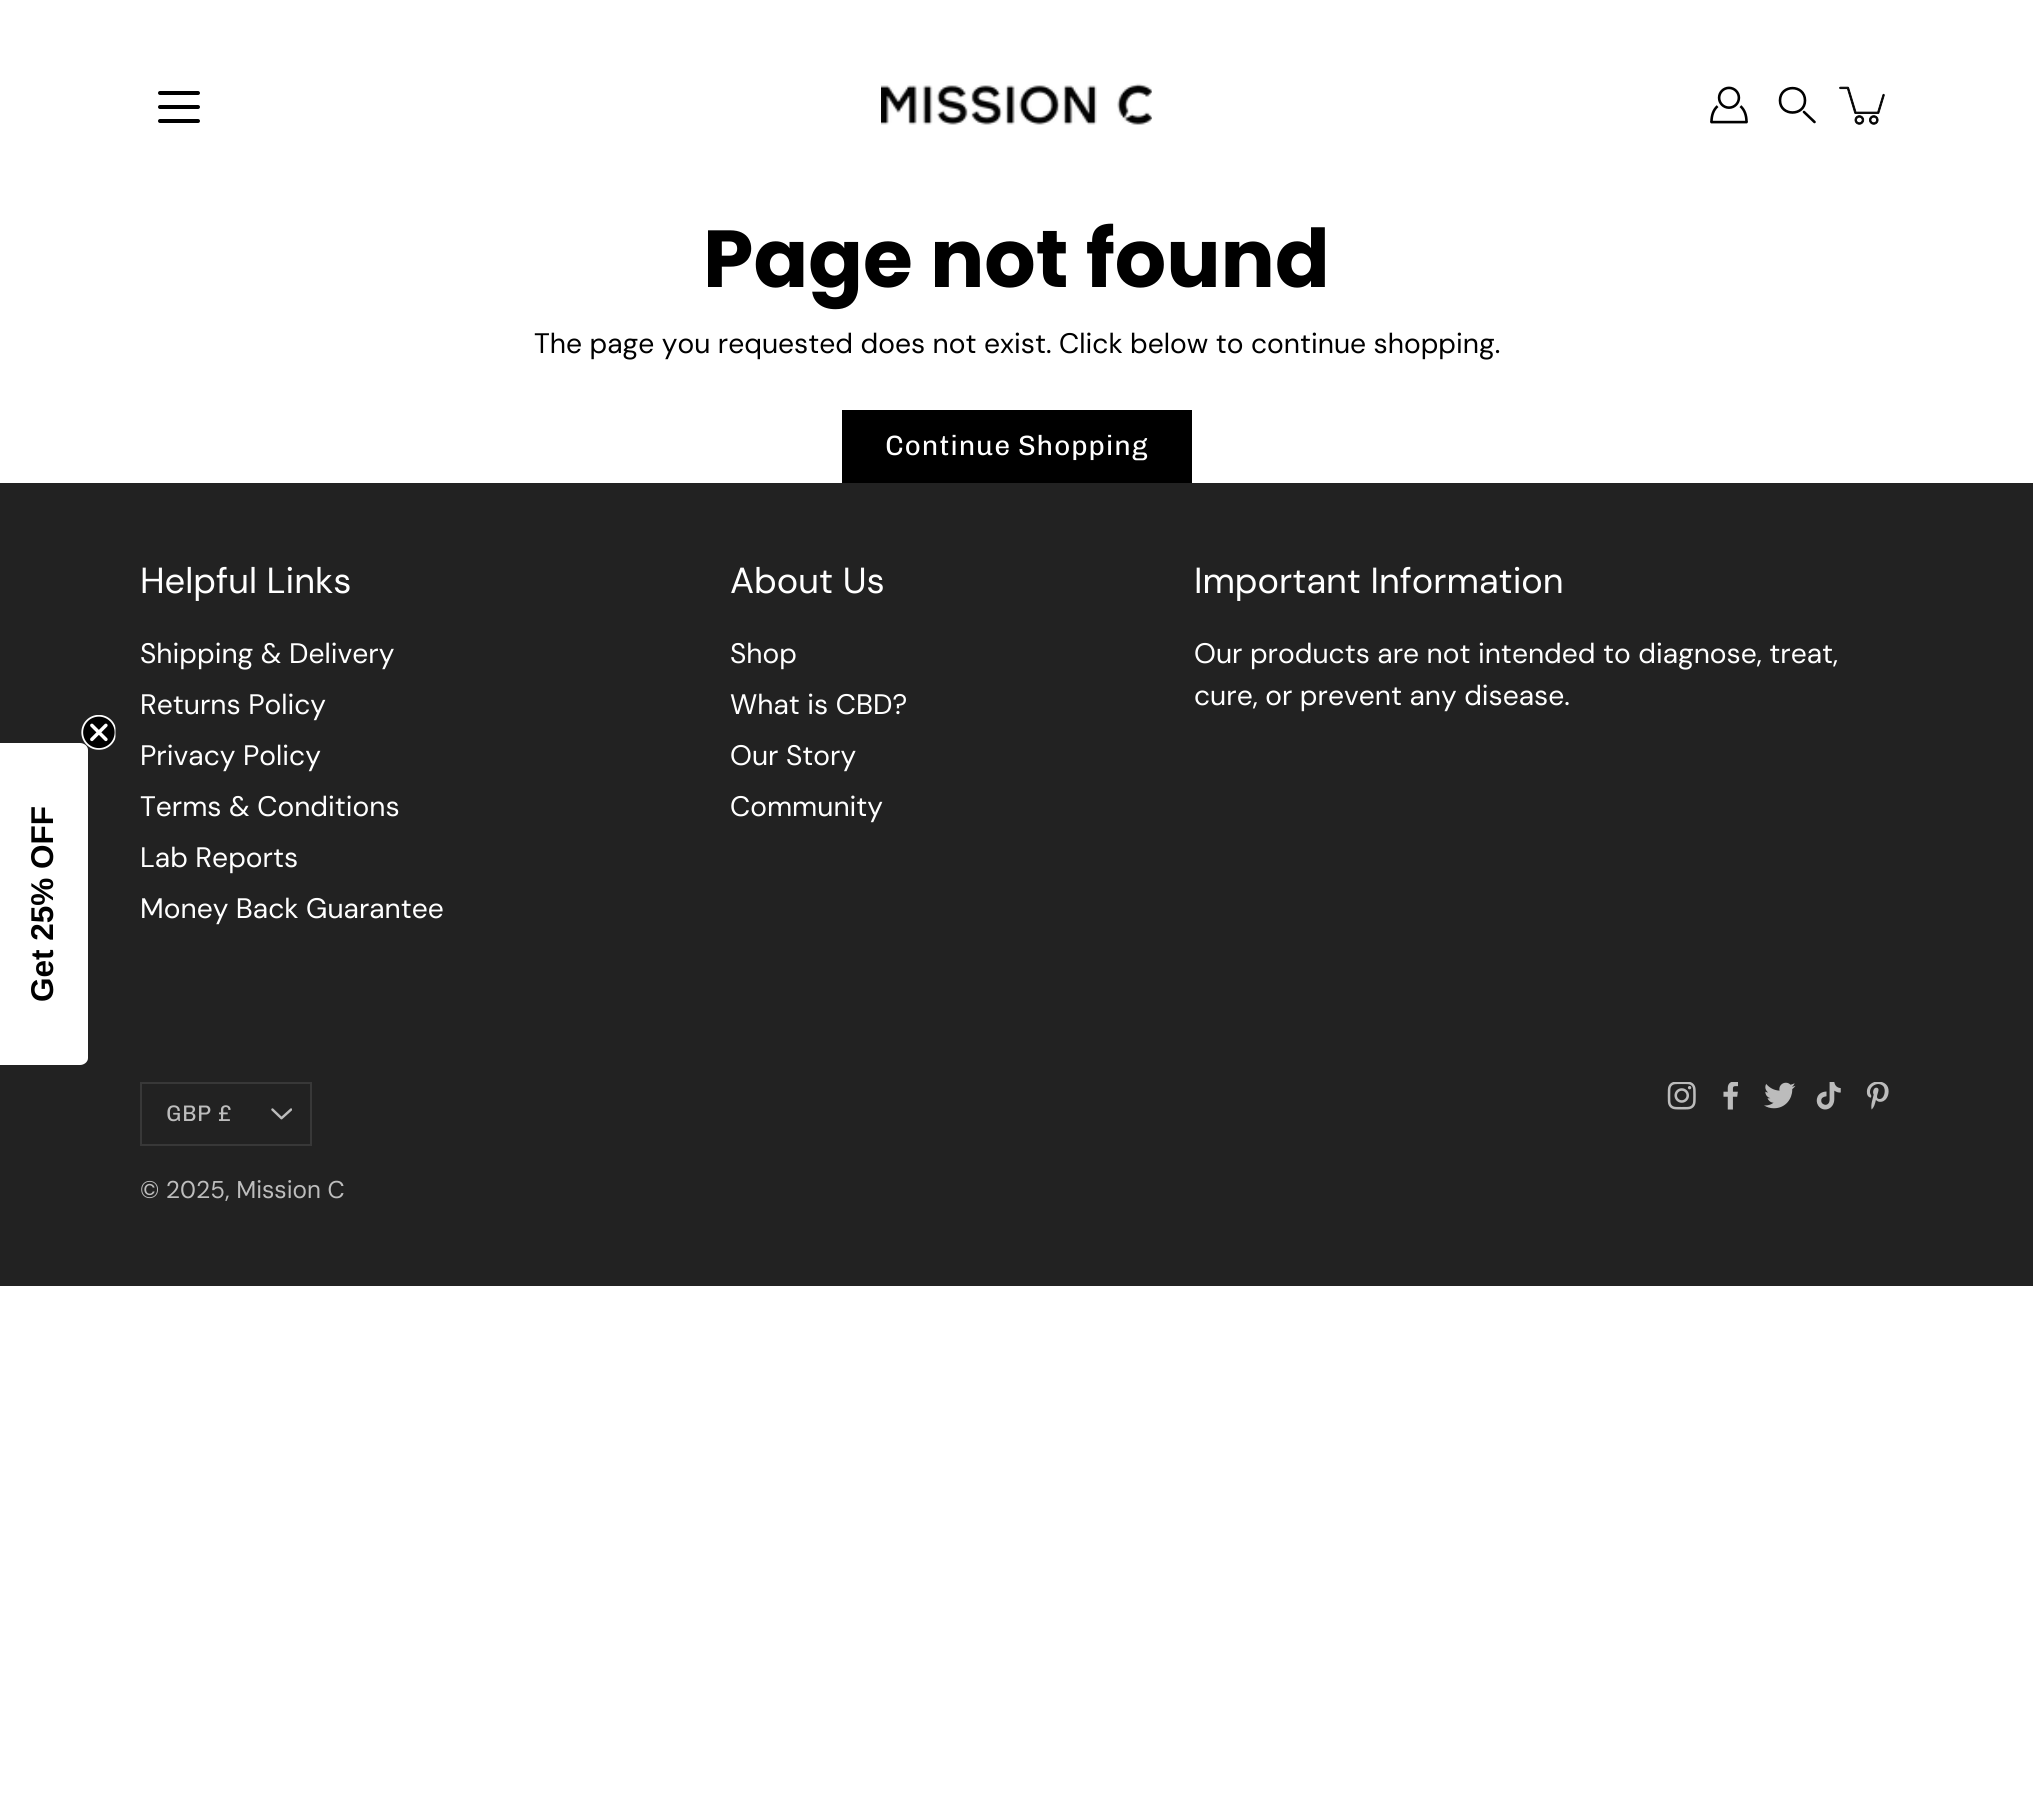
import math
import cairo

surface = cairo.ImageSurface(cairo.FORMAT_RGB24, 2033, 1807)
ctx = cairo.Context(surface)
options = cairo.FontOptions()
options.set_hint_metrics(cairo.HINT_METRICS_OFF)
options.set_hint_style(cairo.HINT_STYLE_NONE)
ctx.set_font_options(options)
ctx.set_miter_limit(4)


def set_color(code):
    ctx.set_source_rgb(*(v / 255 for v in bytes.fromhex(code[-6:])))


def draw_text(x, y, s, family, size, color, bold=False, italic=False):
    ctx.select_font_face(family, cairo.FONT_SLANT_ITALIC if italic else cairo.FONT_SLANT_NORMAL, cairo.FONT_WEIGHT_BOLD if bold else cairo.FONT_WEIGHT_NORMAL)
    ctx.set_font_size(size)
    set_color(color)
    ctx.move_to(x, y)
    ctx.show_text(s)


def draw_spaced(x, y, s, letter, word):
    ctx.move_to(x, y)
    for ch in s:
        ctx.show_text(ch)
        ctx.rel_move_to(letter + word * (ch == ' '), 0)


def fill_rect(x, y, w, h, color):
    set_color(color)
    ctx.rectangle(x, y, w, h)
    ctx.fill()


def rounded_rect(x, y, w, h, r):
    ctx.new_sub_path()
    for i, (u, v) in enumerate([(x + w - r, y + h - r), (x + r, y + h - r), (x + r, y + r), (x + w - r, y + r)]):
        ctx.arc(u, v, r, i * math.pi / 2, (i + 1) * math.pi / 2)
    ctx.close_path()


def draw_image(path, x, y, w, h):
    ctx.save()
    ctx.set_source_surface(cairo.ImageSurface.create_from_png(path), x, y)
    ctx.rectangle(x, y, w, h)
    ctx.fill()
    ctx.restore()


set_color("#ffffff")
ctx.paint()
fill_rect(0, 483, 2033, 803, "#222222")
set_color("#ffffff")
ctx.new_path()
ctx.move_to(0, 1065)
ctx.line_to(0, 743)
ctx.line_to(80, 743)
ctx.curve_to(84, 743, 88, 746, 88, 750)
ctx.line_to(88, 1058)
ctx.curve_to(88, 1062, 84, 1065, 80, 1065)
ctx.close_path()
ctx.fill()
draw_image("assets/img1.png", 81, 715, 35, 35)
ctx.save()
ctx.translate(53, 1002)
ctx.rotate(-90 * math.pi / 180)
draw_text(0, 0, "Get 25% OFF", "Liberation Sans", 31.5, "#000000", bold=True)
ctx.restore()
draw_image("assets/img2.png", 881, 83, 271, 42)
set_color("#000000")
rounded_rect(158, 105, 42, 4, 2)
ctx.fill()
rounded_rect(158, 91, 42, 4, 2)
ctx.fill()
rounded_rect(158, 119, 42, 4, 2)
ctx.fill()
draw_image("assets/img3.png", 1710, 86, 38, 38)
ctx.new_path()
ctx.move_to(1805, 100.5)
ctx.curve_to(1805, 116.5, 1780, 116.5, 1780, 100.5)
ctx.curve_to(1780, 84, 1805, 84, 1805, 100.5)
ctx.close_path()
ctx.set_line_width(2.6)
ctx.stroke()
ctx.new_path()
ctx.move_to(1804, 112)
ctx.line_to(1814.5, 122)
ctx.set_line_cap(cairo.LINE_CAP_ROUND)
ctx.stroke()
draw_image("assets/img4.png", 1839, 86, 46, 39)
draw_text(703, 287, "Page not found", "Poppins", 80.75, "#000000", bold=True)
draw_text(534, 353, "The page you requested does not exist. Click below to continue shopping.", "DM Sans", 28.2, "#000000")
fill_rect(842, 410, 350, 73, "#000000")
ctx.select_font_face("Chivo")
ctx.set_font_size(28)
set_color("#ffffff")
draw_spaced(885, 455, "Continue Shopping", 0.75, 0)
draw_text(140, 593, "Helpful Links", "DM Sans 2", 36.25, "#ffffff")
draw_text(140, 663, "Shipping & Delivery", "DM Sans", 28.2, "#ffffff")
draw_text(140, 714, "Returns Policy", "DM Sans", 28.2, "#ffffff")
draw_text(140, 765, "Privacy Policy", "DM Sans", 28.2, "#ffffff")
draw_text(140, 816, "Terms & Conditions", "DM Sans", 28.2, "#ffffff")
draw_text(140, 867, "Lab Reports", "DM Sans", 28.2, "#ffffff")
draw_text(140, 918, "Money Back Guarantee", "DM Sans", 28.2, "#ffffff")
draw_text(730, 593, "About Us", "DM Sans 2", 36.25, "#ffffff")
draw_text(730, 663, "Shop", "DM Sans", 28.2, "#ffffff")
draw_text(730, 714, "What is CBD?", "DM Sans", 28.2, "#ffffff")
draw_text(730, 765, "Our Story", "DM Sans", 28.2, "#ffffff")
draw_text(730, 816, "Community", "DM Sans", 28.2, "#ffffff")
draw_text(1194, 593, "Important Information", "DM Sans 2", 36.25, "#ffffff")
draw_text(1194, 663, "Our products are not intended to diagnose, treat,", "DM Sans", 28.2, "#ffffff")
draw_text(1194, 705, "cure, or prevent any disease.", "DM Sans", 28.2, "#ffffff")
draw_image("assets/img5.png", 1667, 1082, 29, 28)
draw_image("assets/img6.png", 1723, 1082, 15, 28)
draw_image("assets/img7.png", 1764, 1082, 32, 27)
draw_image("assets/img8.png", 1816, 1082, 25, 28)
draw_image("assets/img9.png", 1866, 1082, 23, 28)
ctx.rectangle(141, 1083, 170, 62)
set_color("#383838")
ctx.set_line_width(2)
ctx.set_line_cap(cairo.LINE_CAP_BUTT)
ctx.stroke()
ctx.select_font_face("Chivo")
ctx.set_font_size(22.5)
set_color("#bdbdbd")
draw_spaced(166, 1121, "GBP £", 0.5, 0)
draw_image("assets/img10.png", 271, 1108, 21, 12)
draw_text(140, 1198, "© 2025, Mission C", "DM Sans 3", 24.25, "#bdbdbd")
surface.write_to_png("output.png")
